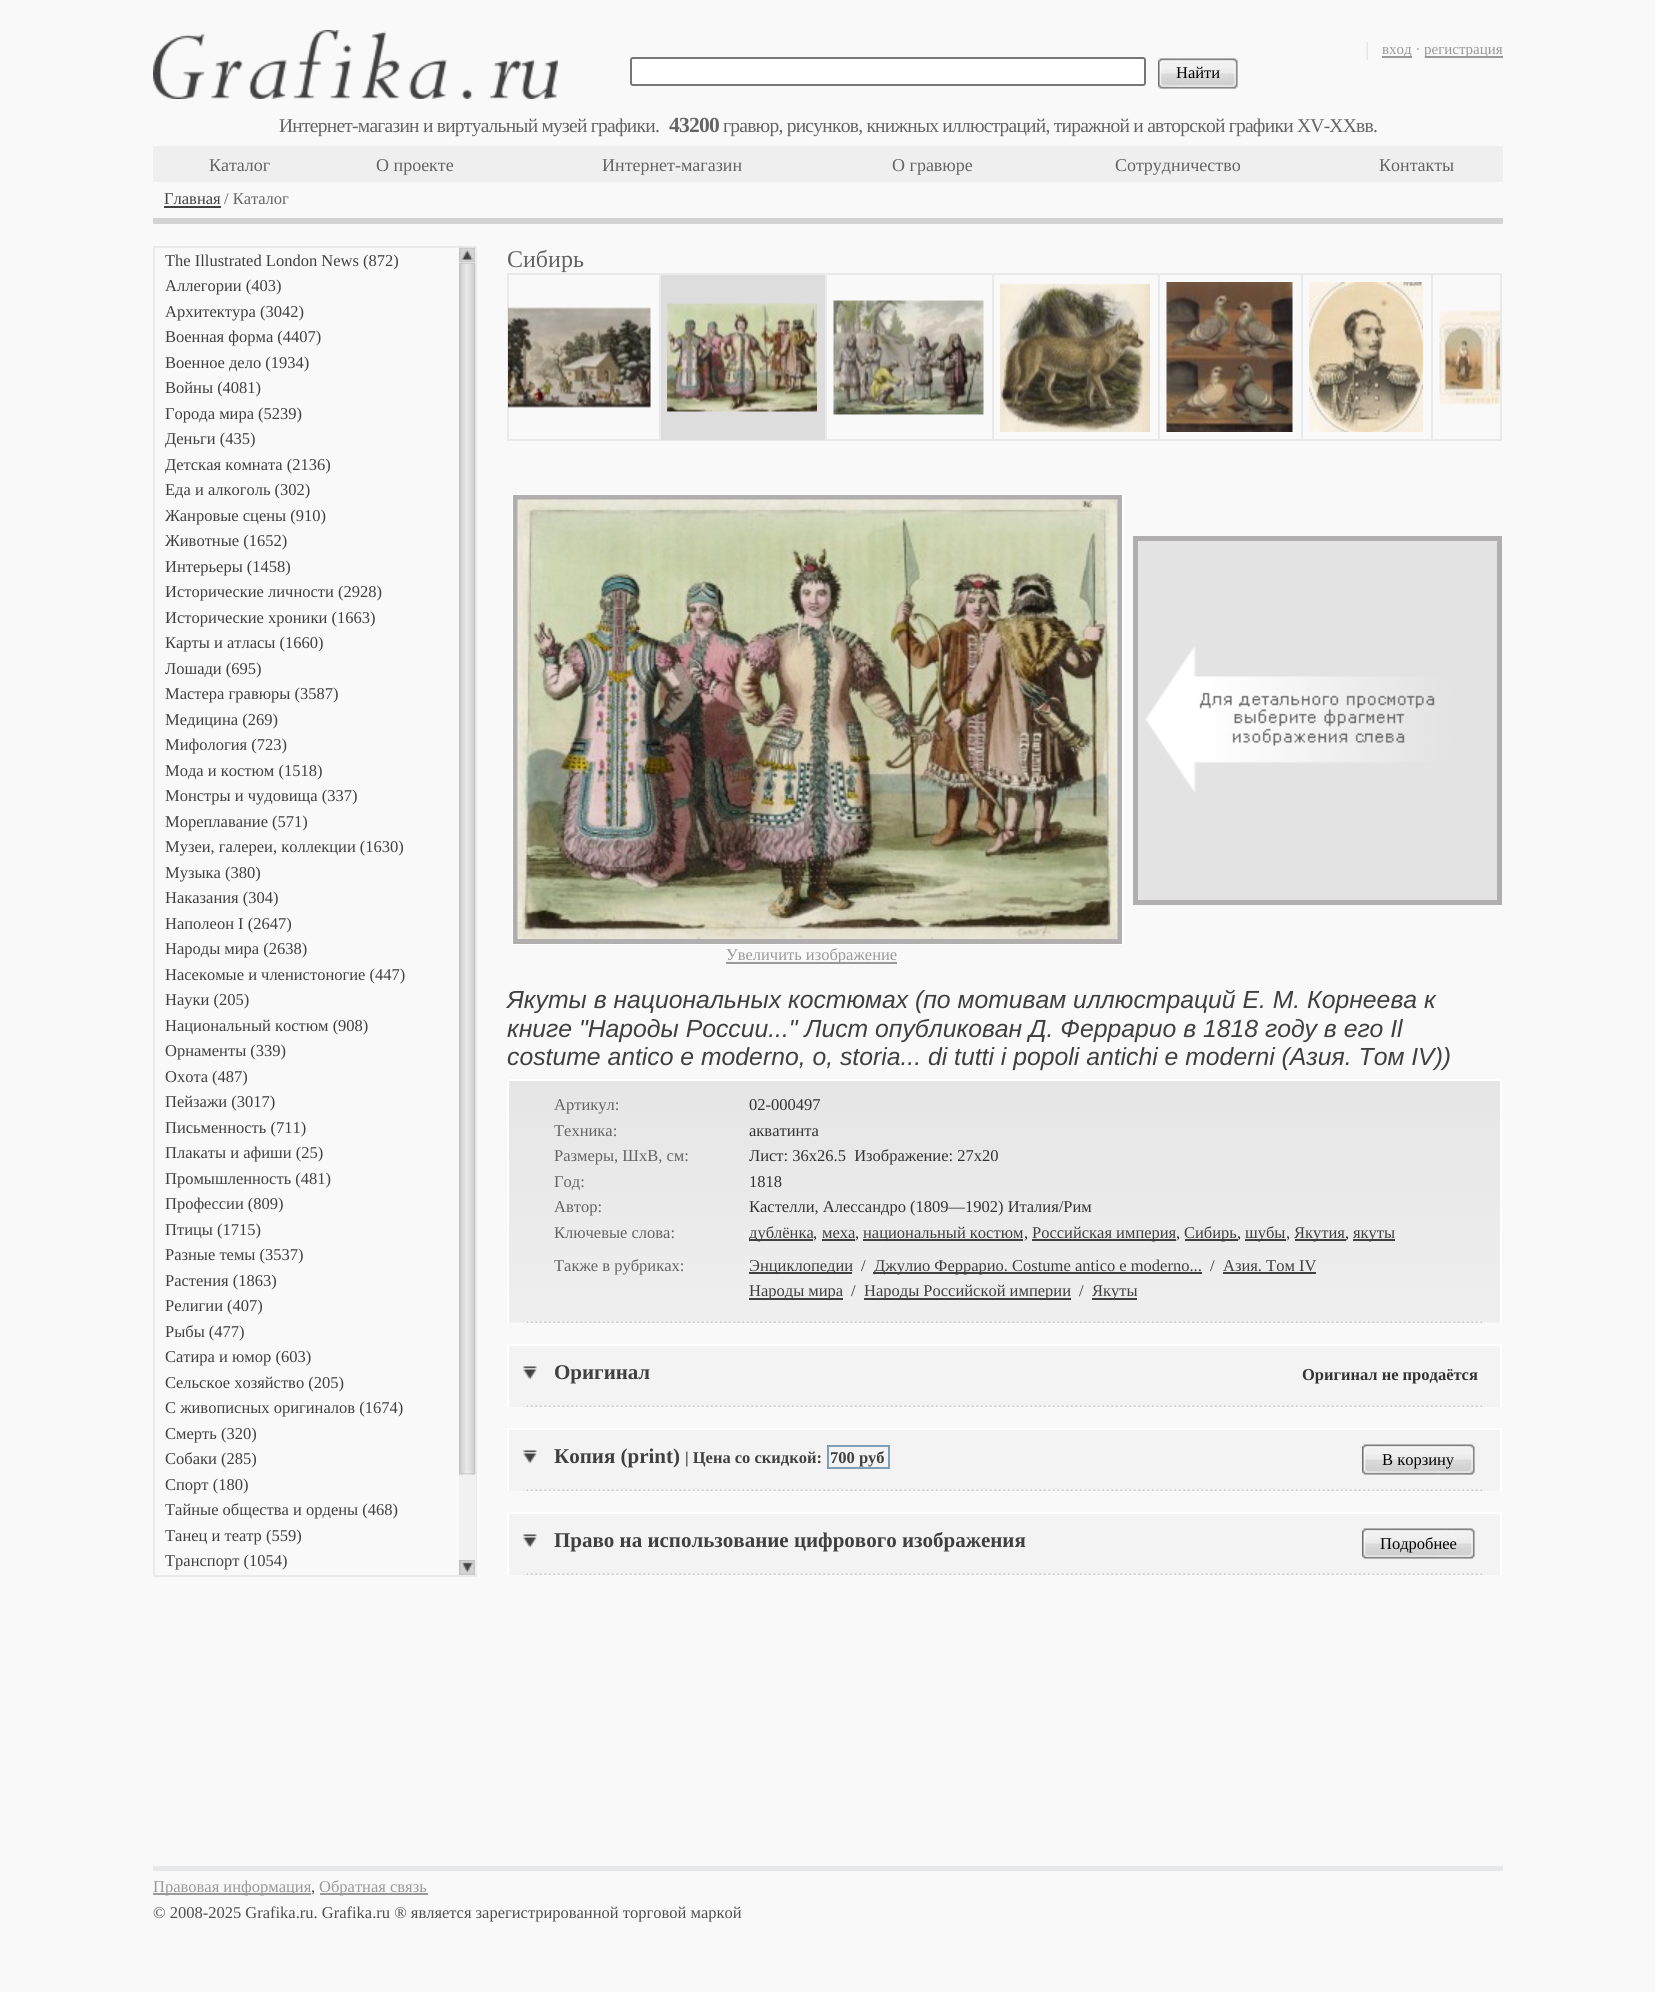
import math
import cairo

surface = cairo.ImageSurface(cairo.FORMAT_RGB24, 1655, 1992)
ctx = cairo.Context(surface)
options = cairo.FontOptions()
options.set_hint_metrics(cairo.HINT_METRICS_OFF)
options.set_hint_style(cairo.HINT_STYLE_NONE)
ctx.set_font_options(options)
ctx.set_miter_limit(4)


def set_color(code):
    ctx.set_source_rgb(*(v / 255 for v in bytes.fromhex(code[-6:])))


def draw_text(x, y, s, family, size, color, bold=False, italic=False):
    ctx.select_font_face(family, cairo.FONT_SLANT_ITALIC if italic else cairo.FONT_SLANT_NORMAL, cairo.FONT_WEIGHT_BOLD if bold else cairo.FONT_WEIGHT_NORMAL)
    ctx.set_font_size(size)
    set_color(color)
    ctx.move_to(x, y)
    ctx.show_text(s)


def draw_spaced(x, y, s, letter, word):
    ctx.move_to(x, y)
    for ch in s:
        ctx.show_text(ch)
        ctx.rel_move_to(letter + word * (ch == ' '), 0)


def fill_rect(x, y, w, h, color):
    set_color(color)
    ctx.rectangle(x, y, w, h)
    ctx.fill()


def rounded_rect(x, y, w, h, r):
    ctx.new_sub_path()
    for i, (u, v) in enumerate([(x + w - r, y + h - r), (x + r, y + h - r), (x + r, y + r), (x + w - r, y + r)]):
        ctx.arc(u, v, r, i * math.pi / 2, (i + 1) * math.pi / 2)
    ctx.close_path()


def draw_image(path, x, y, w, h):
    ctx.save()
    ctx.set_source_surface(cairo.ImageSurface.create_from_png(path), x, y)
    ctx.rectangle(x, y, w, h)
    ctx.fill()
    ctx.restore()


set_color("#f9f9f9")
ctx.paint()
draw_image("assets/img1.png", 153, 30, 405, 69)
draw_image("assets/img2.png", 1366, 42, 2, 18)
fill_rect(1382, 56, 30, 2, "#999999")
draw_text(1382, 54, "вход ·", "Liberation Serif", 15, "#999999")
fill_rect(1425, 56, 78, 2, "#999999")
draw_text(1424, 54, "регистрация", "Liberation Serif", 15, "#999999")
fill_rect(153, 146, 1350, 36, "#efefef")
set_color("#ffffff")
rounded_rect(631, 58, 514, 27, 2)
ctx.fill_preserve()
set_color("#767676")
ctx.stroke()
draw_image("assets/img3.png", 1158, 58, 80, 31)
draw_text(1176, 78, "Найти", "Liberation Serif", 16.5, "#000000")
draw_text(209, 171, "Каталог", "Liberation Serif", 18, "#646464")
draw_text(376, 171, "О проекте", "Liberation Serif", 18, "#646464")
draw_text(602, 171, "Интернет-магазин", "Liberation Serif", 18, "#646464")
draw_text(892, 171, "О гравюре", "Liberation Serif", 18, "#646464")
draw_text(1115, 171, "Сотрудничество", "Liberation Serif", 18, "#646464")
draw_text(1379, 171, "Контакты", "Liberation Serif", 18, "#646464")
ctx.set_font_size(19.5)
draw_spaced(279, 132, "Интернет-магазин и виртуальный музей графики.", -0.75, 0)
ctx.select_font_face("Liberation Serif", cairo.FONT_SLANT_NORMAL, cairo.FONT_WEIGHT_BOLD)
ctx.set_font_size(21.5)
draw_spaced(669, 132, "43200", -0.75, 0)
ctx.select_font_face("Liberation Serif")
ctx.set_font_size(19.5)
draw_spaced(723, 132, "гравюр, рисунков, книжных иллюстраций, тиражной и авторской графики XV-XXвв.", -0.75, 0)
fill_rect(153, 218, 1350, 6, "#d3d3d3")
draw_text(164, 204, "Главная", "Liberation Serif", 16.5, "#404040")
fill_rect(164, 206, 57, 2, "#404040")
draw_text(224, 204, "/ Каталог", "Liberation Serif", 16.5, "#646464")
ctx.rectangle(154, 247, 322, 1329)
set_color("#eaeaea")
ctx.stroke()
draw_text(165, 266, "The Illustrated London News (872)", "Liberation Serif", 16.5, "#404040")
draw_text(165, 291, "Аллегории (403)", "Liberation Serif", 16.5, "#404040")
draw_text(165, 317, "Архитектура (3042)", "Liberation Serif", 16.5, "#404040")
draw_text(165, 342, "Военная форма (4407)", "Liberation Serif", 16.5, "#404040")
draw_text(165, 368, "Военное дело (1934)", "Liberation Serif", 16.5, "#404040")
draw_text(165, 393, "Войны (4081)", "Liberation Serif", 16.5, "#404040")
draw_text(165, 419, "Города мира (5239)", "Liberation Serif", 16.5, "#404040")
draw_text(165, 444, "Деньги (435)", "Liberation Serif", 16.5, "#404040")
draw_text(165, 470, "Детская комната (2136)", "Liberation Serif", 16.5, "#404040")
draw_text(165, 495, "Еда и алкоголь (302)", "Liberation Serif", 16.5, "#404040")
draw_text(165, 521, "Жанровые сцены (910)", "Liberation Serif", 16.5, "#404040")
draw_text(165, 546, "Животные (1652)", "Liberation Serif", 16.5, "#404040")
draw_text(165, 572, "Интерьеры (1458)", "Liberation Serif", 16.5, "#404040")
draw_text(165, 597, "Исторические личности (2928)", "Liberation Serif", 16.5, "#404040")
draw_text(165, 623, "Исторические хроники (1663)", "Liberation Serif", 16.5, "#404040")
draw_text(165, 648, "Карты и атласы (1660)", "Liberation Serif", 16.5, "#404040")
draw_text(165, 674, "Лошади (695)", "Liberation Serif", 16.5, "#404040")
draw_text(165, 699, "Мастера гравюры (3587)", "Liberation Serif", 16.5, "#404040")
draw_text(165, 725, "Медицина (269)", "Liberation Serif", 16.5, "#404040")
draw_text(165, 750, "Мифология (723)", "Liberation Serif", 16.5, "#404040")
draw_text(165, 776, "Мода и костюм (1518)", "Liberation Serif", 16.5, "#404040")
draw_text(165, 801, "Монстры и чудовища (337)", "Liberation Serif", 16.5, "#404040")
draw_text(165, 827, "Мореплавание (571)", "Liberation Serif", 16.5, "#404040")
draw_text(165, 852, "Музеи, галереи, коллекции (1630)", "Liberation Serif", 16.5, "#404040")
draw_text(165, 878, "Музыка (380)", "Liberation Serif", 16.5, "#404040")
draw_text(165, 903, "Наказания (304)", "Liberation Serif", 16.5, "#404040")
draw_text(165, 929, "Наполеон I (2647)", "Liberation Serif", 16.5, "#404040")
draw_text(165, 954, "Народы мира (2638)", "Liberation Serif", 16.5, "#404040")
draw_text(165, 980, "Насекомые и членистоногие (447)", "Liberation Serif", 16.5, "#404040")
draw_text(165, 1005, "Науки (205)", "Liberation Serif", 16.5, "#404040")
draw_text(165, 1031, "Национальный костюм (908)", "Liberation Serif", 16.5, "#404040")
draw_text(165, 1056, "Орнаменты (339)", "Liberation Serif", 16.5, "#404040")
draw_text(165, 1082, "Охота (487)", "Liberation Serif", 16.5, "#404040")
draw_text(165, 1107, "Пейзажи (3017)", "Liberation Serif", 16.5, "#404040")
draw_text(165, 1133, "Письменность (711)", "Liberation Serif", 16.5, "#404040")
draw_text(165, 1158, "Плакаты и афиши (25)", "Liberation Serif", 16.5, "#404040")
draw_text(165, 1184, "Промышленность (481)", "Liberation Serif", 16.5, "#404040")
draw_text(165, 1209, "Профессии (809)", "Liberation Serif", 16.5, "#404040")
draw_text(165, 1235, "Птицы (1715)", "Liberation Serif", 16.5, "#404040")
draw_text(165, 1260, "Разные темы (3537)", "Liberation Serif", 16.5, "#404040")
draw_text(165, 1286, "Растения (1863)", "Liberation Serif", 16.5, "#404040")
draw_text(165, 1311, "Религии (407)", "Liberation Serif", 16.5, "#404040")
draw_text(165, 1337, "Рыбы (477)", "Liberation Serif", 16.5, "#404040")
draw_text(165, 1362, "Сатира и юмор (603)", "Liberation Serif", 16.5, "#404040")
draw_text(165, 1388, "Сельское хозяйство (205)", "Liberation Serif", 16.5, "#404040")
draw_text(165, 1413, "С живописных оригиналов (1674)", "Liberation Serif", 16.5, "#404040")
draw_text(165, 1439, "Смерть (320)", "Liberation Serif", 16.5, "#404040")
draw_text(165, 1464, "Собаки (285)", "Liberation Serif", 16.5, "#404040")
draw_text(165, 1490, "Спорт (180)", "Liberation Serif", 16.5, "#404040")
draw_text(165, 1515, "Тайные общества и ордены (468)", "Liberation Serif", 16.5, "#404040")
draw_text(165, 1541, "Танец и театр (559)", "Liberation Serif", 16.5, "#404040")
draw_text(165, 1566, "Транспорт (1054)", "Liberation Serif", 16.5, "#404040")
fill_rect(459, 248, 17, 15, "#ffffff")
draw_image("assets/img4.png", 459, 247, 17, 16)
fill_rect(459, 263, 17, 1297, "#f1f1f1")
draw_image("assets/img5.png", 459, 263, 17, 1212)
draw_image("assets/img6.png", 459, 263, 17, 2)
draw_image("assets/img7.png", 459, 1471, 17, 4)
fill_rect(475, 1560, 1, 15, "#ffffff")
draw_image("assets/img8.png", 459, 1560, 17, 15)
draw_text(507, 267, "Сибирь", "Liberation Serif", 24, "#646464")
ctx.rectangle(508, 274, 993, 166)
set_color("#eaeaea")
ctx.stroke()
draw_image("assets/img9.png", 508, 307, 143, 101)
fill_rect(661, 275, 164, 165, "#dddddd")
fill_rect(659, 275, 2, 165, "#eaeaea")
draw_image("assets/img10.png", 667, 303, 150, 109)
fill_rect(825, 275, 2, 165, "#eaeaea")
draw_image("assets/img11.png", 833, 300, 151, 115)
fill_rect(992, 275, 2, 165, "#eaeaea")
draw_image("assets/img12.png", 1000, 283, 150, 149)
fill_rect(1158, 275, 2, 165, "#eaeaea")
draw_image("assets/img13.png", 1166, 282, 127, 150)
fill_rect(1301, 275, 2, 165, "#eaeaea")
draw_image("assets/img14.png", 1309, 282, 114, 150)
fill_rect(1431, 275, 2, 165, "#eaeaea")
draw_image("assets/img15.png", 1439, 310, 61, 95)
ctx.rectangle(513, 495, 610, 449)
set_color("#ffffff")
ctx.stroke()
ctx.rectangle(515.5, 497.5, 604, 444)
set_color("#b0aeaf")
ctx.set_line_width(5)
ctx.stroke()
draw_image("assets/img16.png", 517, 499, 601, 440)
draw_image("assets/img17.png", 1138, 541, 359, 359)
ctx.rectangle(1135.5, 538.5, 364, 364)
ctx.stroke()
fill_rect(726, 962, 171, 2, "#999999")
draw_text(726, 960, "Увеличить изображение", "Liberation Serif", 16.5, "#999999")
draw_text(507, 1008, "Якуты в национальных костюмах (по мотивам иллюстраций Е. М. Корнеева к", "Liberation Sans", 24.75, "#404040", italic=True)
draw_text(507, 1037, "книге \"Народы России...\" Лист опубликован Д. Феррарио в 1818 году в его Il", "Liberation Sans", 24.75, "#404040", italic=True)
draw_text(507, 1065, "costume antico e moderno, o, storia... di tutti i popoli antichi e moderni (Азия. Том IV))", "Liberation Sans", 24.75, "#404040", italic=True)
fill_rect(509, 1322, 991, 1, "#f3f3f3")
draw_image("assets/img18.png", 509, 1081, 991, 241)
fill_rect(507, 1079, 995, 2, "#ffffff")
fill_rect(1500, 1079, 2, 244, "#ffffff")
fill_rect(507, 1079, 2, 244, "#ffffff")
draw_text(554, 1110, "Артикул:", "Liberation Serif", 16.5, "#646464")
draw_text(749, 1110, "02-000497", "Liberation Serif", 16.5, "#333333")
draw_text(554, 1136, "Техника:", "Liberation Serif", 16.5, "#646464")
draw_text(749, 1136, "акватинта", "Liberation Serif", 16.5, "#333333")
draw_text(554, 1161, "Размеры, ШxВ, см:", "Liberation Serif", 16.5, "#646464")
draw_text(749, 1161, "Лист: 36x26.5  Изображение: 27x20", "Liberation Serif", 16.5, "#333333")
draw_text(554, 1187, "Год:", "Liberation Serif", 16.5, "#646464")
draw_text(749, 1187, "1818", "Liberation Serif", 16.5, "#333333")
draw_text(554, 1212, "Автор:", "Liberation Serif", 16.5, "#646464")
draw_text(749, 1212, "Кастелли, Алессандро (1809—1902) Италия/Рим", "Liberation Serif", 16.5, "#333333")
draw_text(554, 1238, "Ключевые слова:", "Liberation Serif", 16.5, "#646464")
fill_rect(749, 1239, 64, 2, "#404040")
draw_text(749, 1238, "дублёнка", "Liberation Serif", 16.5, "#404040")
draw_text(813, 1238, ",", "Liberation Serif", 16.5, "#333333")
draw_text(822, 1238, "меха", "Liberation Serif", 16.5, "#404040")
fill_rect(822, 1239, 33, 2, "#404040")
draw_text(855, 1238, ",", "Liberation Serif", 16.5, "#333333")
fill_rect(863, 1239, 160, 2, "#404040")
draw_text(863, 1238, "национальный костюм", "Liberation Serif", 16.5, "#404040")
draw_text(1024, 1238, ",", "Liberation Serif", 16.5, "#333333")
fill_rect(1032, 1239, 144, 2, "#404040")
draw_text(1032, 1238, "Российская империя", "Liberation Serif", 16.5, "#404040")
draw_text(1176, 1238, ",", "Liberation Serif", 16.5, "#333333")
fill_rect(1185, 1239, 53, 2, "#404040")
draw_text(1184, 1238, "Сибирь", "Liberation Serif", 16.5, "#404040")
draw_text(1237, 1238, ",", "Liberation Serif", 16.5, "#333333")
fill_rect(1245, 1239, 41, 2, "#404040")
draw_text(1245, 1238, "шубы", "Liberation Serif", 16.5, "#404040")
draw_text(1286, 1238, ",", "Liberation Serif", 16.5, "#333333")
fill_rect(1295, 1239, 51, 2, "#404040")
draw_text(1294, 1238, "Якутия", "Liberation Serif", 16.5, "#404040")
draw_text(1345, 1238, ",", "Liberation Serif", 16.5, "#333333")
fill_rect(1353, 1239, 42, 2, "#404040")
draw_text(1353, 1238, "якуты", "Liberation Serif", 16.5, "#404040")
draw_text(554, 1271, "Также в рубриках:", "Liberation Serif", 16.5, "#646464")
fill_rect(749, 1272, 103, 2, "#404040")
draw_text(749, 1271, "Энциклопедии", "Liberation Serif", 16.5, "#404040")
draw_text(861, 1271, "/", "Liberation Serif", 16.5, "#333333")
fill_rect(873, 1272, 329, 2, "#404040")
draw_text(874, 1271, "Джулио Феррарио. Costume antico e moderno...", "Liberation Serif", 16.5, "#404040")
draw_text(1210, 1271, "/", "Liberation Serif", 16.5, "#333333")
draw_text(1223, 1271, "Азия. Том IV", "Liberation Serif", 16.5, "#404040")
fill_rect(1223, 1272, 93, 2, "#404040")
fill_rect(749, 1298, 94, 2, "#404040")
draw_text(749, 1296, "Народы мира", "Liberation Serif", 16.5, "#404040")
draw_text(851, 1296, "/", "Liberation Serif", 16.5, "#333333")
fill_rect(864, 1298, 207, 2, "#404040")
draw_text(864, 1296, "Народы Российской империи", "Liberation Serif", 16.5, "#404040")
draw_text(1079, 1296, "/", "Liberation Serif", 16.5, "#333333")
fill_rect(1092, 1298, 45, 2, "#404040")
draw_text(1092, 1296, "Якуты", "Liberation Serif", 16.5, "#404040")
draw_image("assets/img19.png", 523, 1321, 962, 2)
fill_rect(509, 1346, 991, 61, "#f3f3f3")
fill_rect(507, 1344, 995, 2, "#ffffff")
fill_rect(1500, 1344, 2, 63, "#ffffff")
fill_rect(507, 1344, 2, 63, "#ffffff")
draw_image("assets/img20.png", 523, 1366, 14, 14)
draw_text(554, 1379, "Оригинал", "Liberation Serif", 21, "#404040", bold=True)
draw_text(1302, 1380, "Оригинал не продаётся", "Liberation Serif", 16.5, "#333333", bold=True)
draw_image("assets/img21.png", 523, 1405, 962, 2)
fill_rect(509, 1430, 991, 61, "#f3f3f3")
fill_rect(507, 1428, 995, 2, "#ffffff")
fill_rect(1500, 1428, 2, 63, "#ffffff")
fill_rect(507, 1428, 2, 63, "#ffffff")
draw_image("assets/img20.png", 523, 1450, 14, 14)
draw_text(554, 1463, "Копия (print)", "Liberation Serif", 21, "#404040", bold=True)
draw_text(685, 1463, "| Цена со скидкой:", "Liberation Serif", 16.5, "#404040", bold=True)
ctx.rectangle(828, 1446, 61, 22)
set_color("#7f9eba")
ctx.set_line_width(2)
ctx.stroke()
draw_text(830, 1463, "700 руб", "Liberation Serif", 16.5, "#404040", bold=True)
draw_image("assets/img22.png", 1362, 1444, 113, 31)
draw_text(1382, 1465, "В корзину", "Liberation Serif", 16.5, "#000000")
draw_image("assets/img21.png", 523, 1489, 962, 2)
fill_rect(509, 1514, 991, 61, "#f3f3f3")
fill_rect(507, 1512, 995, 2, "#ffffff")
fill_rect(1500, 1512, 2, 63, "#ffffff")
fill_rect(507, 1512, 2, 63, "#ffffff")
draw_image("assets/img20.png", 523, 1534, 14, 14)
draw_text(554, 1547, "Право на использование цифрового изображения", "Liberation Serif", 21, "#404040", bold=True)
draw_image("assets/img22.png", 1362, 1528, 113, 31)
draw_text(1380, 1549, "Подробнее", "Liberation Serif", 16.5, "#000000")
draw_image("assets/img21.png", 523, 1573, 962, 2)
fill_rect(153, 1866, 1350, 5, "#e7e8e9")
fill_rect(153, 1893, 158, 2, "#999999")
draw_text(153, 1892, "Правовая информация", "Liberation Serif", 16.5, "#999999")
draw_text(311, 1892, ",", "Liberation Serif", 16.5, "#4e4e4e")
fill_rect(320, 1893, 108, 2, "#999999")
draw_text(319, 1892, "Обратная связь", "Liberation Serif", 16.5, "#999999")
draw_text(153, 1918, "© 2008-2025 Grafika.ru. Grafika.ru ® является зарегистрированной торговой маркой", "Liberation Serif", 16.5, "#4e4e4e")
surface.write_to_png("output.png")
